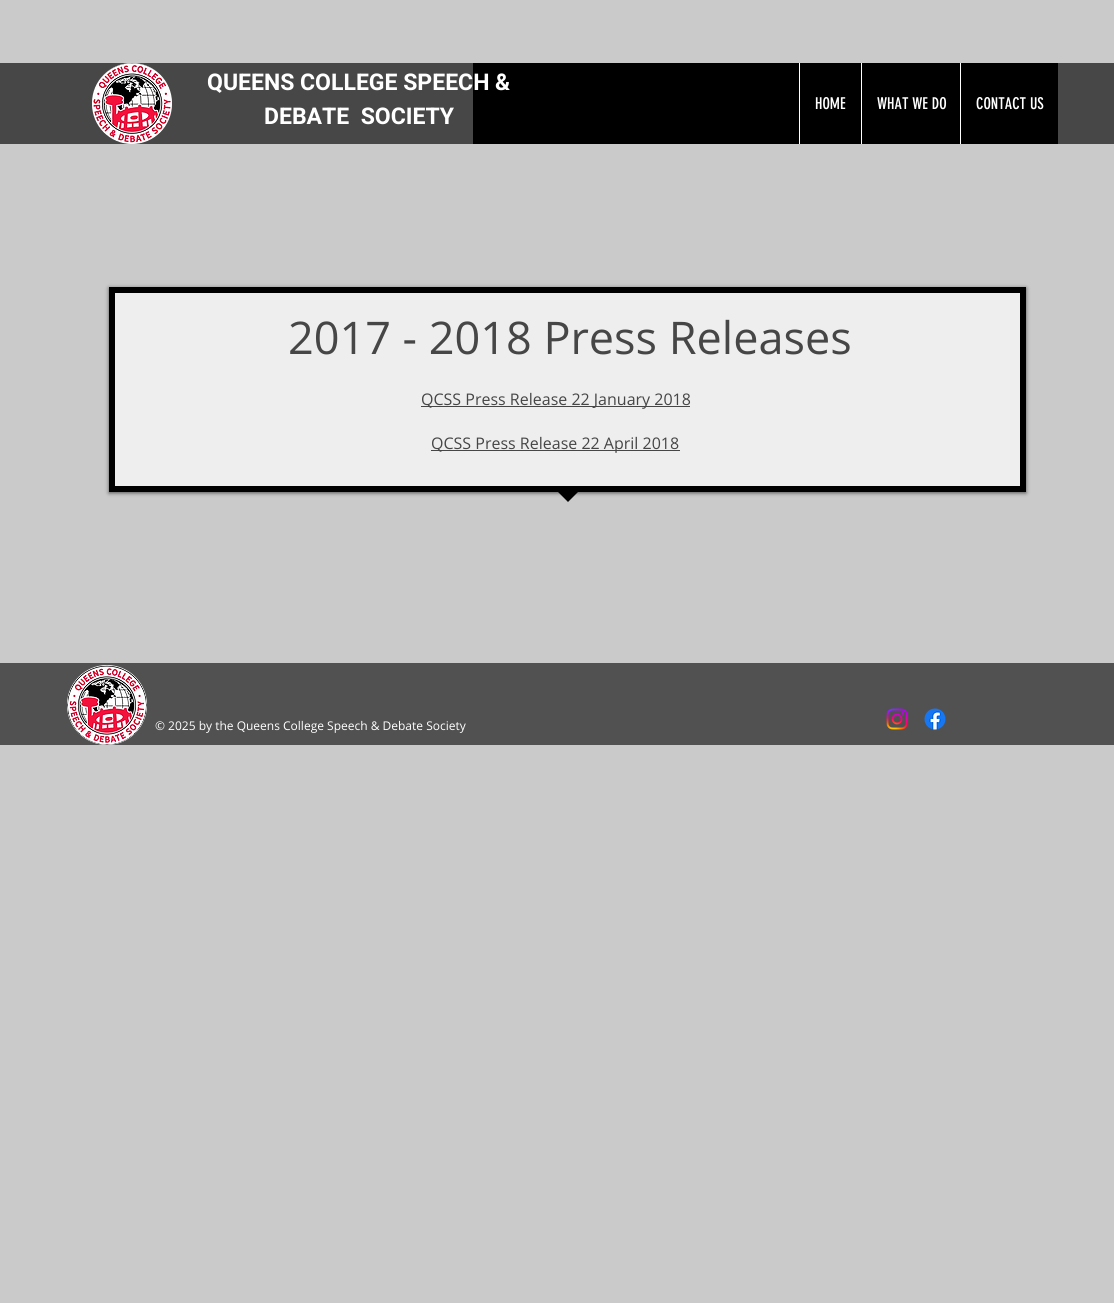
import math
import cairo

surface = cairo.ImageSurface(cairo.FORMAT_RGB24, 1114, 1303)
ctx = cairo.Context(surface)
options = cairo.FontOptions()
options.set_hint_metrics(cairo.HINT_METRICS_OFF)
options.set_hint_style(cairo.HINT_STYLE_NONE)
ctx.set_font_options(options)
ctx.set_miter_limit(4)


def set_color(code):
    ctx.set_source_rgb(*(v / 255 for v in bytes.fromhex(code[-6:])))


def draw_text(x, y, s, family, size, color, bold=False, italic=False):
    ctx.select_font_face(family, cairo.FONT_SLANT_ITALIC if italic else cairo.FONT_SLANT_NORMAL, cairo.FONT_WEIGHT_BOLD if bold else cairo.FONT_WEIGHT_NORMAL)
    ctx.set_font_size(size)
    set_color(color)
    ctx.move_to(x, y)
    ctx.show_text(s)


def fill_rect(x, y, w, h, color):
    set_color(color)
    ctx.rectangle(x, y, w, h)
    ctx.fill()


def rounded_rect(x, y, w, h, r):
    ctx.new_sub_path()
    for i, (u, v) in enumerate([(x + w - r, y + h - r), (x + r, y + h - r), (x + r, y + r), (x + w - r, y + r)]):
        ctx.arc(u, v, r, i * math.pi / 2, (i + 1) * math.pi / 2)
    ctx.close_path()


def draw_shadow(x, y, w, h, r, blur, alpha):
    ctx.push_group_with_content(cairo.CONTENT_ALPHA)
    ctx.set_operator(cairo.OPERATOR_SOURCE)
    for i in range(15, -16, -2):
        e = blur * i / 6
        if min(w, h) + 2 * e > 0:
            ctx.set_source_rgba(0, 0, 0, alpha * math.erfc((i - 1) / 8.5) / 2)
            rounded_rect(x - e, y - e, w + 2 * e, h + 2 * e, max(0, min(r + e + blur * .6, min(w, h) / 2 + e)))
            ctx.fill()
    ctx.mask(ctx.pop_group())


def draw_image(path, x, y, w, h):
    ctx.save()
    ctx.set_source_surface(cairo.ImageSurface.create_from_png(path), x, y)
    ctx.rectangle(x, y, w, h)
    ctx.fill()
    ctx.restore()


set_color("#cacaca")
ctx.paint()
fill_rect(0, 63, 1114, 81, "#474747")
set_color("#ffffff")
rounded_rect(92, 63, 80, 81, 40)
ctx.fill()
draw_image("assets/img1.png", 92, 63, 80, 81)
fill_rect(473, 63, 585, 81, "#000000")
draw_text(207, 90, "QUEENS COLLEGE SPEECH &", "Heebo", 23, "#ffffff", bold=True)
draw_text(264, 124, "DEBATE  SOCIETY", "Heebo", 23, "#ffffff", bold=True)
fill_rect(799, 63, 1, 81, "#ffffff")
draw_text(815, 109, "HOME", "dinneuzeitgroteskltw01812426", 16, "#ffffff")
fill_rect(861, 63, 1, 81, "#ffffff")
draw_text(877, 109, "WHAT WE DO", "dinneuzeitgroteskltw01812426", 16, "#ffffff")
fill_rect(960, 63, 1, 81, "#ffffff")
draw_text(976, 109, "CONTACT US", "dinneuzeitgroteskltw01812426", 16, "#ffffff")
set_color("#000000")
draw_shadow(109, 288, 917, 205, 0, 2, 0.6)
set_color("#eeeeee")
ctx.rectangle(112, 290, 911, 199)
ctx.fill_preserve()
set_color("#000000")
ctx.set_line_width(6)
ctx.stroke()
draw_text(288, 354, "2017 - 2018 Press Releases", "Open Sans", 45, "#464646")
fill_rect(421, 406, 269, 1, "#464646")
draw_text(421, 405, "QCSS Press Release 22 January 2018", "Open Sans", 16, "#464646")
fill_rect(431, 450, 249, 1, "#464646")
draw_text(431, 449, "QCSS Press Release 22 April 2018", "Open Sans", 16, "#464646")
set_color("#000000")
ctx.new_path()
ctx.move_to(558, 492)
ctx.line_to(578, 492)
ctx.line_to(568, 502)
ctx.close_path()
ctx.fill()
fill_rect(0, 663, 1114, 82, "#515151")
set_color("#ffffff")
ctx.arc(107, 705, 40, 0, 2 * math.pi)
ctx.fill()
draw_image("assets/img2.png", 67, 665, 80, 80)
draw_text(155, 730, "© 2025 by the Queens College Speech & Debate Society", "Open Sans", 12, "#ffffff")
draw_image("assets/img3.png", 886, 708, 22, 22)
draw_image("assets/img4.png", 924, 708, 22, 22)
surface.write_to_png("output.png")
